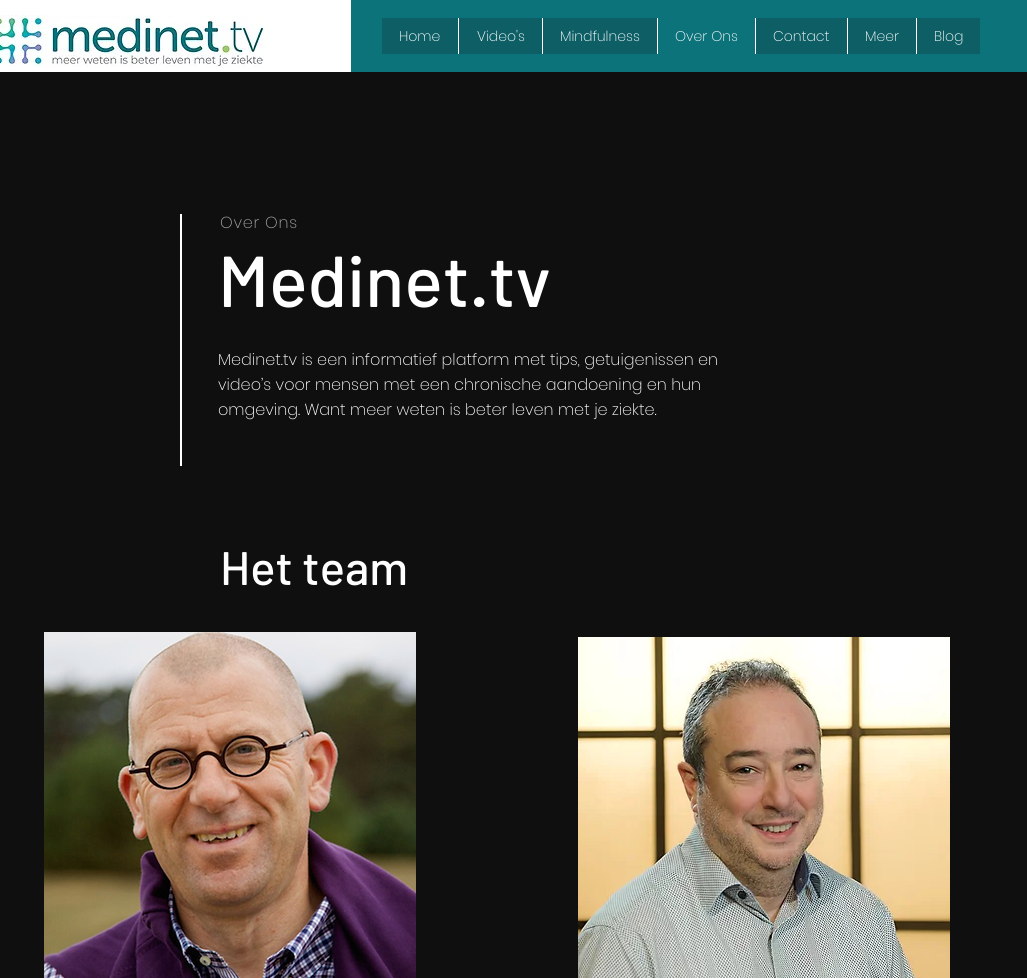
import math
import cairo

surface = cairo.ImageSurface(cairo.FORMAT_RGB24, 1027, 978)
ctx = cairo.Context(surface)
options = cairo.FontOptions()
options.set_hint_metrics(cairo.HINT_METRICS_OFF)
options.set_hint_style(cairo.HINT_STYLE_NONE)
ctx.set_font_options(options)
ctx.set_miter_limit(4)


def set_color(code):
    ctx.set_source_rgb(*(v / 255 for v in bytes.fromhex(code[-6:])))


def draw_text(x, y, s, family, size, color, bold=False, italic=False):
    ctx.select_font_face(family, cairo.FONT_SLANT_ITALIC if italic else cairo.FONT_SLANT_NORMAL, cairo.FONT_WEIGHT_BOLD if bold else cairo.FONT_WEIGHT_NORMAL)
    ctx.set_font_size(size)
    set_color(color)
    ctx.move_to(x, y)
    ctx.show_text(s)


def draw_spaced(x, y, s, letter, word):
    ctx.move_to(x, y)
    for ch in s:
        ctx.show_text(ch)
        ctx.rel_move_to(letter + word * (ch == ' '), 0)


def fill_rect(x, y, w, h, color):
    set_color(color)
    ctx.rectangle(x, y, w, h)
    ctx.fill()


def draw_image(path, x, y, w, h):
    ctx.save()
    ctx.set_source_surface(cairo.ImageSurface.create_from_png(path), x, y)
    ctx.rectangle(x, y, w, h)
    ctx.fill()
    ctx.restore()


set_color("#0f0f0f")
ctx.paint()
fill_rect(0, 0, 351, 72, "#ffffff")
draw_image("assets/img1.png", 0, 15, 265, 52)
fill_rect(351, 0, 676, 72, "#0c737b")
fill_rect(382, 18, 598, 36, "#0d5f65")
draw_text(399, 41, "Home", "Poppins ExtraLight", 14, "#ffffff")
fill_rect(458, 18, 1, 36, "#ffffff")
draw_text(477, 41, "Video's", "Poppins ExtraLight", 14, "#ffffff")
fill_rect(542, 18, 1, 36, "#ffffff")
draw_text(560, 41, "Mindfulness", "Poppins ExtraLight", 14, "#ffffff")
fill_rect(658, 18, 97, 36, "#0c737b")
fill_rect(657, 18, 1, 36, "#ffffff")
draw_text(675, 41, "Over Ons", "Poppins ExtraLight", 14, "#ffffff")
fill_rect(755, 18, 1, 36, "#ffffff")
draw_text(773, 41, "Contact", "Poppins ExtraLight", 14, "#ffffff")
fill_rect(847, 18, 1, 36, "#ffffff")
draw_text(865, 41, "Meer", "Poppins ExtraLight", 14, "#ffffff")
fill_rect(916, 18, 1, 36, "#ffffff")
draw_text(934, 41, "Blog", "Poppins ExtraLight", 14, "#ffffff")
fill_rect(180, 214, 2, 252, "#ffffff")
ctx.set_font_size(16)
set_color("#a8a8a8")
draw_spaced(220, 228, "Over Ons", 0.75, 0)
draw_text(218, 307, "Medinet.tv", "Barlow Medium", 72, "#ffffff")
draw_text(218, 365, "Medinet.tv is een informatief platform met tips, getuigenissen en", "Poppins ExtraLight", 16, "#ffffff")
draw_text(218, 390, "video’s voor mensen met een chronische aandoening en hun", "Poppins ExtraLight", 16, "#ffffff")
draw_text(218, 415, "omgeving. Want meer weten is beter leven met je ziekte.", "Poppins ExtraLight", 16, "#ffffff")
draw_text(220, 585, "Het team", "Barlow Medium", 47, "#ffffff")
draw_image("assets/img2.png", 44, 632, 372, 346)
draw_image("assets/img3.png", 578, 637, 372, 341)
surface.write_to_png("output.png")
